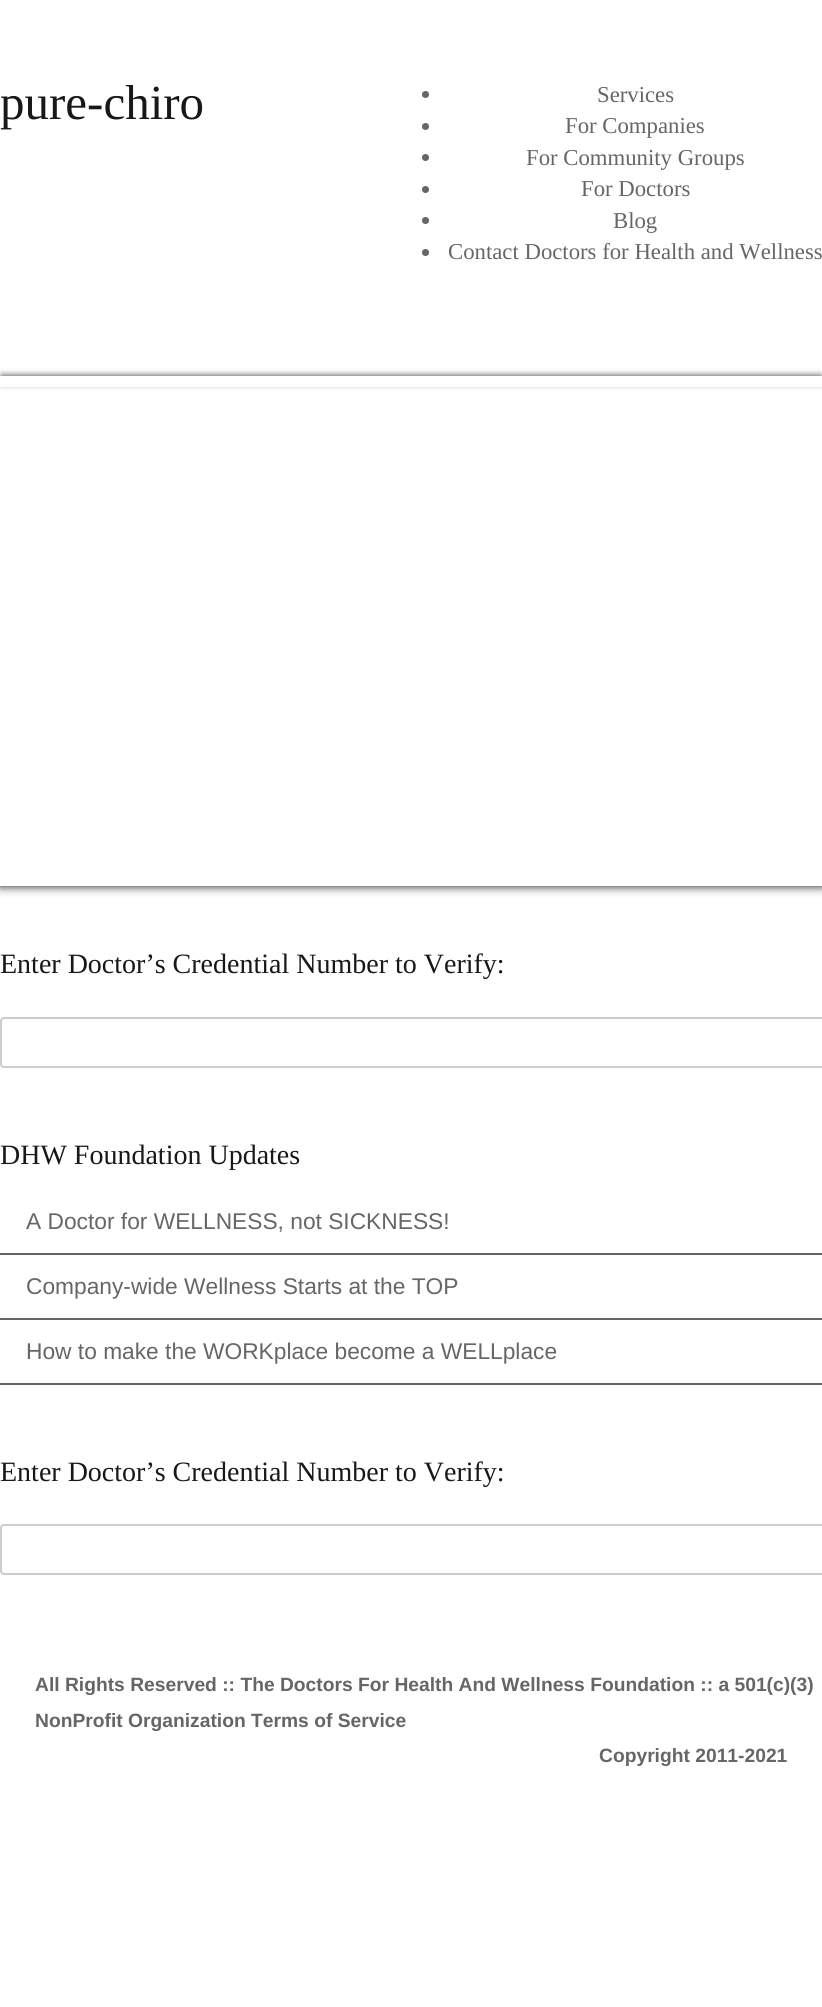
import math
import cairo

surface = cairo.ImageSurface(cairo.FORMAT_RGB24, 822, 2007)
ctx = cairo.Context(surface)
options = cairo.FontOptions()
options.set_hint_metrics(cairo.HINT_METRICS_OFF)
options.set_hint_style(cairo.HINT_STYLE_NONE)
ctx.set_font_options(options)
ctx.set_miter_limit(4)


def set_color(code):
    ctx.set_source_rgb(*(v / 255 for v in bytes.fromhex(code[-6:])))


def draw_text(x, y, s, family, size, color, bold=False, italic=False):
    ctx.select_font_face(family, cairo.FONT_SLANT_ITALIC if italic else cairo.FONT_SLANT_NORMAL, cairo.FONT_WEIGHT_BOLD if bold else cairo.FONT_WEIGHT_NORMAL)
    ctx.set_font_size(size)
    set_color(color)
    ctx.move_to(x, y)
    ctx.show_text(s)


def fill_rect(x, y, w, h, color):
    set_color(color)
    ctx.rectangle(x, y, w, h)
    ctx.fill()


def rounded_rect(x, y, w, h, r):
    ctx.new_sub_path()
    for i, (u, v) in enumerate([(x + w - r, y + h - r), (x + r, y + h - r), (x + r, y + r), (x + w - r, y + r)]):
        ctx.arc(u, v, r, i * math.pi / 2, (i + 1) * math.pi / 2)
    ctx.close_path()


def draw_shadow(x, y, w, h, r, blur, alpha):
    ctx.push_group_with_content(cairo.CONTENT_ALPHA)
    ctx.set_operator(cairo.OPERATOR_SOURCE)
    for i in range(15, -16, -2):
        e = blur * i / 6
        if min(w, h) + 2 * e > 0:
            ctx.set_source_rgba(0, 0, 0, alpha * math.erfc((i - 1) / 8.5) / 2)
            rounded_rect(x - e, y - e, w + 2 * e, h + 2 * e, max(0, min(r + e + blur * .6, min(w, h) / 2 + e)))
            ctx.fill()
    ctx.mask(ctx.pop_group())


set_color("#ffffff")
ctx.paint()
draw_text(0, 119, "pure-chiro", "Liberation Serif", 49, "#181818")
set_color("#666666")
ctx.new_path()
ctx.arc(425.5, 94.5, 3.5, 0, 2 * math.pi)
ctx.fill()
draw_text(597, 102, "Services", "Liberation Serif", 22.75, "#666666")
ctx.new_path()
ctx.arc(425.5, 126.5, 3.5, 0, 2 * math.pi)
ctx.fill()
draw_text(565, 133, "For Companies", "Liberation Serif", 22.75, "#666666")
ctx.new_path()
ctx.arc(425.5, 157.5, 3.5, 0, 2 * math.pi)
ctx.fill()
draw_text(526, 165, "For Community Groups", "Liberation Serif", 22.75, "#666666")
ctx.new_path()
ctx.arc(425.5, 189.5, 3.5, 0, 2 * math.pi)
ctx.fill()
draw_text(581, 196, "For Doctors", "Liberation Serif", 22.75, "#666666")
ctx.new_path()
ctx.arc(425.5, 220.5, 3.5, 0, 2 * math.pi)
ctx.fill()
draw_text(613, 228, "Blog", "Liberation Serif", 22.75, "#666666")
ctx.new_path()
ctx.arc(425.5, 252.5, 3.5, 0, 2 * math.pi)
ctx.fill()
draw_text(448, 259, "Contact Doctors for Health and Wellness", "Liberation Serif", 22.75, "#666666")
ctx.save()
ctx.set_fill_rule(cairo.FILL_RULE_EVEN_ODD)
ctx.new_path()
ctx.move_to(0, 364)
ctx.line_to(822, 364)
ctx.line_to(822, 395)
ctx.line_to(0, 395)
ctx.close_path()
ctx.move_to(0, 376)
ctx.line_to(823, 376)
ctx.line_to(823, 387)
ctx.line_to(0, 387)
ctx.close_path()
ctx.clip()
set_color("#333333")
draw_shadow(2, 376, 819, 7, 0, 3.5, 1)
ctx.restore()
ctx.save()
ctx.rectangle(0, 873, 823, 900)
ctx.clip()
ctx.set_fill_rule(cairo.FILL_RULE_EVEN_ODD)
ctx.new_path()
ctx.move_to(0, 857)
ctx.line_to(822, 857)
ctx.line_to(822, 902)
ctx.line_to(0, 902)
ctx.close_path()
ctx.move_to(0, 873)
ctx.line_to(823, 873)
ctx.line_to(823, 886)
ctx.line_to(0, 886)
ctx.close_path()
ctx.clip()
set_color("#111111")
draw_shadow(0, 873, 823, 13, 0, 5, 1)
ctx.restore()
draw_text(0, 973, "Enter Doctor’s Credential Number to Verify:", "Liberation Serif", 28, "#181818")
rounded_rect(1, 1018, 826, 49, 3)
set_color("#cccccc")
ctx.stroke()
draw_text(0, 1164, "DHW Foundation Updates", "Liberation Serif", 28, "#181818")
fill_rect(0, 1253, 822, 2, "#666666")
draw_text(26, 1229, "A Doctor for WELLNESS, not SICKNESS!", "Liberation Sans", 22.75, "#666666")
fill_rect(0, 1318, 822, 2, "#666666")
draw_text(26, 1294, "Company-wide Wellness Starts at the TOP", "Liberation Sans", 22.75, "#666666")
fill_rect(0, 1383, 822, 2, "#666666")
draw_text(26, 1359, "How to make the WORKplace become a WELLplace", "Liberation Sans", 22.75, "#666666")
draw_text(0, 1481, "Enter Doctor’s Credential Number to Verify:", "Liberation Serif", 28, "#181818")
rounded_rect(1, 1525, 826, 49, 3)
set_color("#cccccc")
ctx.stroke()
draw_text(35, 1691, "All Rights Reserved :: The Doctors For Health And Wellness Foundation :: a 501(c)(3)", "Liberation Sans", 19.25, "#666666", bold=True)
draw_text(35, 1727, "NonProfit Organization Terms of Service", "Liberation Sans", 19.25, "#666666", bold=True)
draw_text(599, 1762, "Copyright 2011-2021", "Liberation Sans", 19.25, "#666666", bold=True)
surface.write_to_png("output.png")
